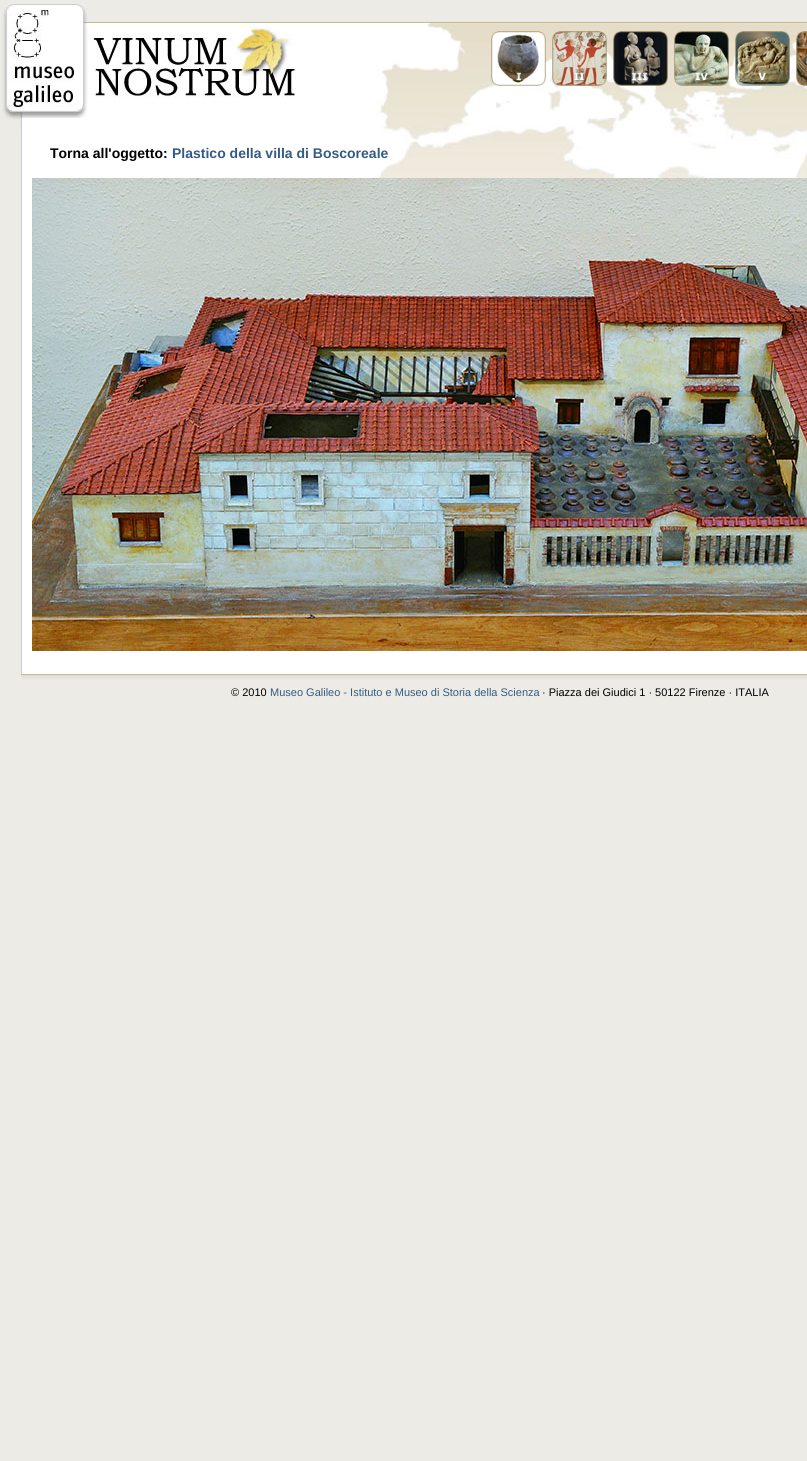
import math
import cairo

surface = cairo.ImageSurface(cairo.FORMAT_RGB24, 807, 1461)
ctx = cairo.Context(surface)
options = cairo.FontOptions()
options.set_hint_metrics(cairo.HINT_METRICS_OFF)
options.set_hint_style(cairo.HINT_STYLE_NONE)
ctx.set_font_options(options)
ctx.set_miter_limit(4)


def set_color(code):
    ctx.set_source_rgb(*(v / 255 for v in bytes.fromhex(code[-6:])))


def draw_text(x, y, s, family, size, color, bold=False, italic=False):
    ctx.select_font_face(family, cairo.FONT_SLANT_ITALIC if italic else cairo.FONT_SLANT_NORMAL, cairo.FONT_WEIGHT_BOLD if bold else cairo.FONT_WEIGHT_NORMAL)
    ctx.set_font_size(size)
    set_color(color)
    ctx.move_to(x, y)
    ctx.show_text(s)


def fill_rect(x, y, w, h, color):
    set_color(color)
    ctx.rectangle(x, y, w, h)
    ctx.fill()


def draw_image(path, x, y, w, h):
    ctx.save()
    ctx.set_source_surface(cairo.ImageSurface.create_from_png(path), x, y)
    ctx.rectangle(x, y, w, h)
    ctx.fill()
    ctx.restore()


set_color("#edebe6")
ctx.paint()
draw_image("assets/img1.png", 2, 2, 86, 128)
draw_image("assets/img2.png", 88, 18, 719, 100)
draw_image("assets/img3.png", 88, 26, 214, 92)
draw_image("assets/img4.png", 491, 31, 55, 55)
draw_image("assets/img5.png", 552, 31, 55, 55)
draw_image("assets/img6.png", 613, 31, 55, 55)
draw_image("assets/img7.png", 674, 31, 55, 55)
draw_image("assets/img8.png", 735, 31, 55, 55)
draw_image("assets/img9.png", 796, 31, 11, 55)
draw_image("assets/img10.png", 21, 674, 786, 6)
fill_rect(22, 118, 785, 556, "#ffffff")
fill_rect(21, 118, 1, 556, "#cccccc")
draw_image("assets/img11.png", 305, 118, 502, 60)
draw_text(50, 158, "Torna all'oggetto:", "Liberation Sans", 14, "#000000", bold=True)
draw_text(172, 158, "Plastico della villa di Boscoreale", "Liberation Sans", 14, "#355b82", bold=True)
draw_image("assets/img12.png", 32, 178, 775, 473)
draw_text(231, 696, "© 2010", "Liberation Sans", 11, "#000000")
draw_text(270, 696, "Museo Galileo - Istituto e Museo di Storia della Scienza", "Liberation Sans", 11, "#355b82")
draw_text(542, 696, "· Piazza dei Giudici 1 · 50122 Firenze · ITALIA", "Liberation Sans", 11, "#000000")
surface.write_to_png("output.png")
